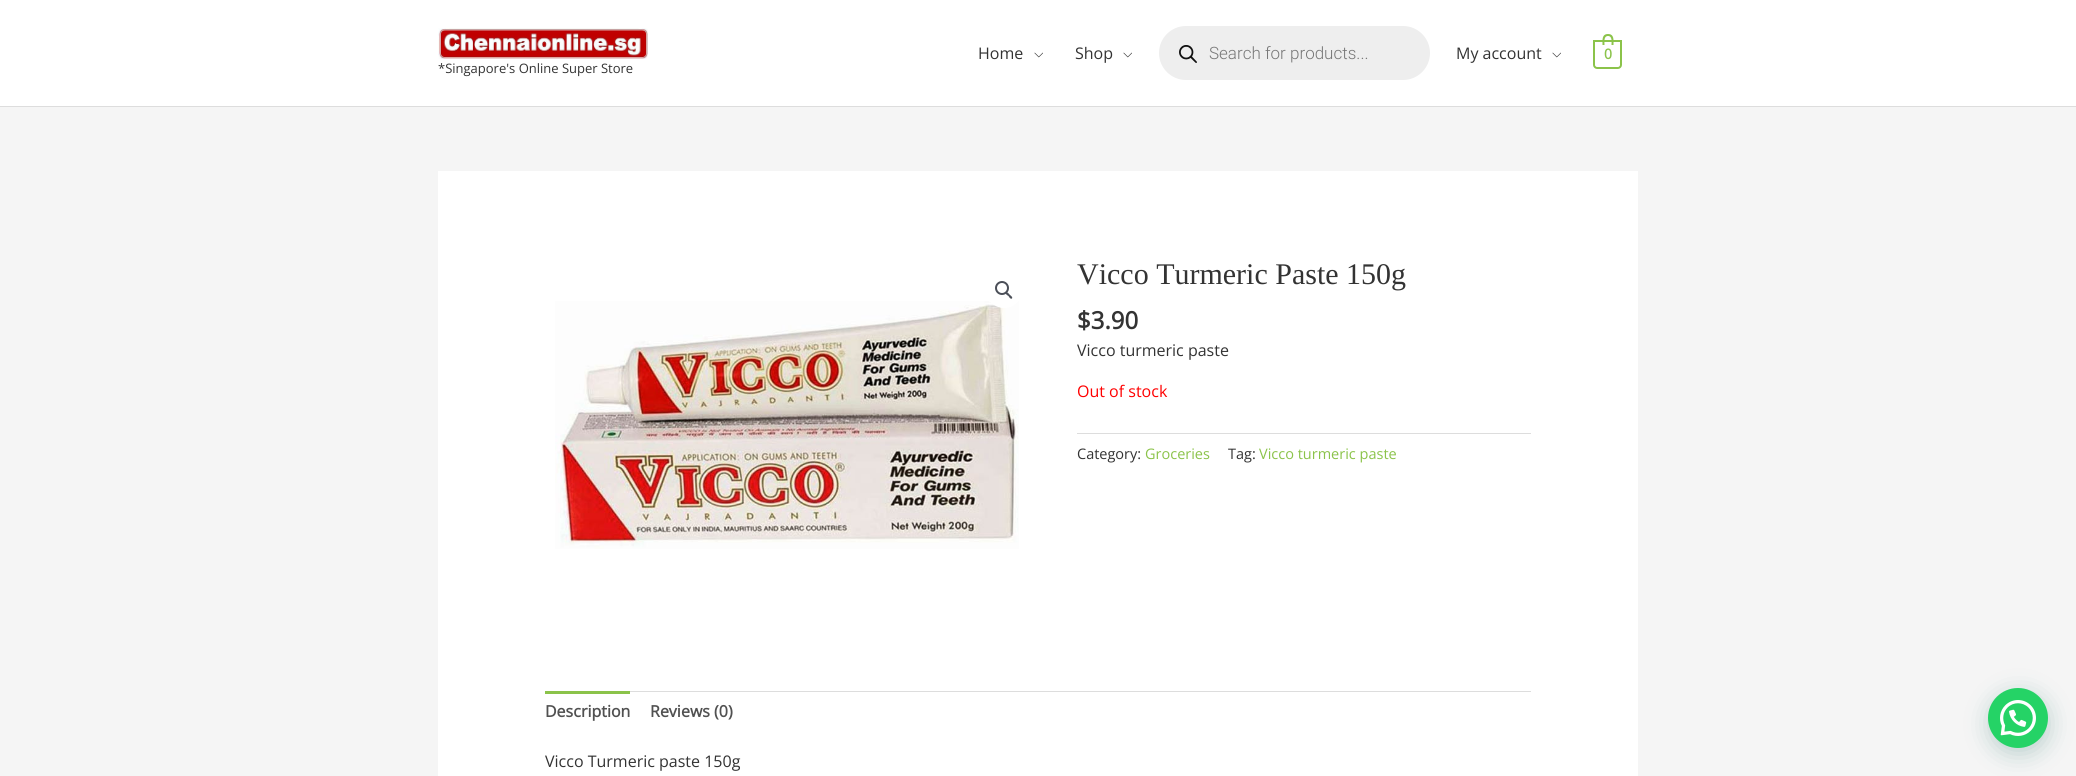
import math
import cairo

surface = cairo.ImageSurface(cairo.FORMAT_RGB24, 2076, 776)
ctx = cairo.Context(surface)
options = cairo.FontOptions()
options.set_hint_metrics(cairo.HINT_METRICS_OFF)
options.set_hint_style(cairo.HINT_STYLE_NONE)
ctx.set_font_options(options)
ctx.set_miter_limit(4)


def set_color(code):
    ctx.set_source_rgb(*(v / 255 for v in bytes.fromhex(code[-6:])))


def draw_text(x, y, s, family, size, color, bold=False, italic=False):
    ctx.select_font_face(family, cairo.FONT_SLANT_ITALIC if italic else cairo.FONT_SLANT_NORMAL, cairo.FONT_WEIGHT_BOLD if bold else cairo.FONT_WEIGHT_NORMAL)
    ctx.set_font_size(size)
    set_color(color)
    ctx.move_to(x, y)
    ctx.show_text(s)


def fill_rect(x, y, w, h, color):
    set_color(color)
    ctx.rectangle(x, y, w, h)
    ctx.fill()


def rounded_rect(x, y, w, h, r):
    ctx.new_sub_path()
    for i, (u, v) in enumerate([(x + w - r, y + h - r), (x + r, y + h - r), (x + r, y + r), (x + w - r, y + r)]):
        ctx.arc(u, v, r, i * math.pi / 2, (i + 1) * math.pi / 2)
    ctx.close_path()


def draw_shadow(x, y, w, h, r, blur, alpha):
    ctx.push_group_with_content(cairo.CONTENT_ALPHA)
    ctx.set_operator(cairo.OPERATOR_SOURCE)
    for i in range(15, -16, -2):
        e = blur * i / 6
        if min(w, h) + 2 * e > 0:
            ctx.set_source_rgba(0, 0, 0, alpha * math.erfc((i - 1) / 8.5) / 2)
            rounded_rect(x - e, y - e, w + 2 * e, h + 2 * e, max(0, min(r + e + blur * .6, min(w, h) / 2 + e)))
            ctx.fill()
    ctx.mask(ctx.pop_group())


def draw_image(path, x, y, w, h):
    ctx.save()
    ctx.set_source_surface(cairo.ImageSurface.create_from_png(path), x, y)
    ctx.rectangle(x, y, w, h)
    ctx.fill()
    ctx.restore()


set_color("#f5f5f5")
ctx.paint()
fill_rect(0, 0, 2076, 106, "#ffffff")
fill_rect(0, 106, 2076, 1, "#dddddd")
draw_text(978, 59, "Home", "Open Sans", 16, "#333333")
draw_image("assets/img1.png", 1034, 52, 9, 6)
draw_text(1075, 59, "Shop", "Open Sans", 16, "#333333")
draw_image("assets/img1.png", 1123, 52, 9, 6)
set_color("#eeeeee")
rounded_rect(1159, 26, 271, 54, 27)
ctx.fill()
draw_image("assets/img2.png", 1179, 45, 18, 18)
draw_text(1209, 59, "Search for products...", "Roboto Light", 17, "#777777")
draw_text(1456, 59, "My account", "Open Sans", 16, "#333333")
draw_image("assets/img1.png", 1552, 52, 9, 6)
ctx.new_path()
ctx.move_to(1594, 41)
ctx.line_to(1621, 41)
ctx.line_to(1621, 65)
ctx.curve_to(1621, 66.5, 1619.5, 68, 1618, 68)
ctx.line_to(1597, 68)
ctx.curve_to(1595.5, 68, 1594, 66.5, 1594, 65)
ctx.close_path()
set_color("#8bc34a")
ctx.stroke()
ctx.set_fill_rule(cairo.FILL_RULE_EVEN_ODD)
ctx.new_path()
ctx.move_to(1608, 34)
ctx.curve_to(1614.5, 34, 1613.5, 40.5, 1613.5, 45)
ctx.line_to(1602.5, 45)
ctx.curve_to(1602.5, 40.5, 1601.5, 34, 1608, 34)
ctx.close_path()
ctx.move_to(1608, 36)
ctx.curve_to(1612.5, 36, 1611.5, 42, 1611.5, 45)
ctx.line_to(1604.5, 45)
ctx.curve_to(1604.5, 42, 1603.5, 36, 1608, 36)
ctx.close_path()
ctx.fill()
draw_text(1604, 59, "0", "Open Sans", 14, "#8bc34a", bold=True)
draw_image("assets/img3.png", 438, 28, 210, 31)
draw_text(438, 73, "*Singapore's Online Super Store", "Open Sans", 13, "#333333")
fill_rect(438, 171, 1200, 605, "#ffffff")
draw_image("assets/img4.png", 555, 301, 464, 248)
ctx.arc(1004, 290, 18, 0, 2 * math.pi)
ctx.fill()
ctx.arc(1002, 288, 6, 0, 2 * math.pi)
set_color("#4b4f58")
ctx.stroke()
ctx.set_fill_rule(cairo.FILL_RULE_WINDING)
ctx.new_path()
ctx.move_to(1006, 292.5)
ctx.curve_to(1007.5, 291.5, 1009, 294, 1009.5, 294.5)
ctx.curve_to(1010.5, 295.5, 1013, 297, 1012, 298.5)
ctx.curve_to(1010.5, 299.5, 1009, 297, 1008.5, 296)
ctx.curve_to(1007.5, 295.5, 1005, 294, 1006, 292.5)
ctx.close_path()
ctx.fill()
draw_text(1077, 284, "Vicco Turmeric Paste 150g", "Liberation Serif", 30, "#333333")
draw_text(1077, 329, "$3.90", "Open Sans", 24, "#333333", bold=True)
draw_text(1077, 356, "Vicco turmeric paste", "Open Sans", 16, "#333333")
draw_text(1077, 397, "Out of stock", "Open Sans", 16, "#ff0000")
fill_rect(1077, 433, 454, 1, "#dddddd")
draw_text(1077, 459, "Category:", "Open Sans", 14.5, "#333333")
draw_text(1145, 459, "Groceries", "Open Sans", 14.5, "#8bc34a")
draw_text(1228, 459, "Tag:", "Open Sans", 14.5, "#333333")
draw_text(1259, 459, "Vicco turmeric paste", "Open Sans", 14.5, "#8bc34a")
fill_rect(630, 691, 901, 1, "#dddddd")
fill_rect(545, 691, 85, 3, "#8bc34a")
draw_text(545, 717, "Description", "Open Sans", 16, "#515151", bold=True)
draw_text(650, 717, "Reviews (0)", "Open Sans", 16, "#515151", bold=True)
draw_text(545, 767, "Vicco Turmeric paste 150g", "Open Sans", 16, "#333333")
set_color("#075e54")
draw_shadow(1989, 694, 60, 60, 30, 12, 0.24)
set_color("#25d366")
ctx.arc(2018, 718, 30, 0, 2 * math.pi)
ctx.fill()
draw_image("assets/img5.png", 2000, 700, 36, 36)
surface.write_to_png("output.png")
